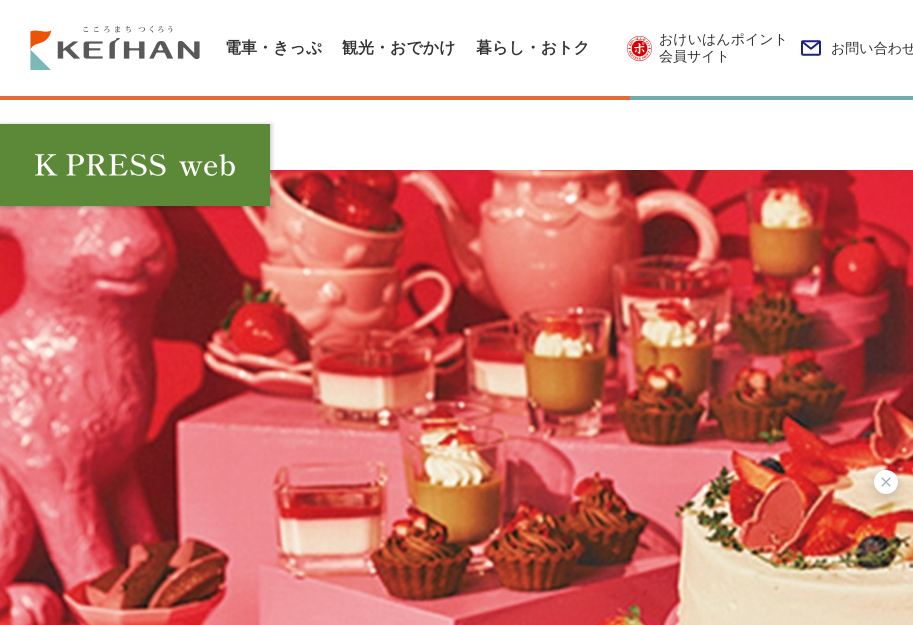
import math
import cairo

surface = cairo.ImageSurface(cairo.FORMAT_RGB24, 913, 625)
ctx = cairo.Context(surface)
options = cairo.FontOptions()
options.set_hint_metrics(cairo.HINT_METRICS_OFF)
options.set_hint_style(cairo.HINT_STYLE_NONE)
ctx.set_font_options(options)
ctx.set_miter_limit(4)


def set_color(code):
    ctx.set_source_rgb(*(v / 255 for v in bytes.fromhex(code[-6:])))


def draw_text(x, y, s, family, size, color, bold=False, italic=False):
    ctx.select_font_face(family, cairo.FONT_SLANT_ITALIC if italic else cairo.FONT_SLANT_NORMAL, cairo.FONT_WEIGHT_BOLD if bold else cairo.FONT_WEIGHT_NORMAL)
    ctx.set_font_size(size)
    set_color(color)
    ctx.move_to(x, y)
    ctx.show_text(s)


def fill_rect(x, y, w, h, color):
    set_color(color)
    ctx.rectangle(x, y, w, h)
    ctx.fill()


def rounded_rect(x, y, w, h, r):
    ctx.new_sub_path()
    for i, (u, v) in enumerate([(x + w - r, y + h - r), (x + r, y + h - r), (x + r, y + r), (x + w - r, y + r)]):
        ctx.arc(u, v, r, i * math.pi / 2, (i + 1) * math.pi / 2)
    ctx.close_path()


def draw_shadow(x, y, w, h, r, blur, alpha):
    ctx.push_group_with_content(cairo.CONTENT_ALPHA)
    ctx.set_operator(cairo.OPERATOR_SOURCE)
    for i in range(15, -16, -2):
        e = blur * i / 6
        if min(w, h) + 2 * e > 0:
            ctx.set_source_rgba(0, 0, 0, alpha * math.erfc((i - 1) / 8.5) / 2)
            rounded_rect(x - e, y - e, w + 2 * e, h + 2 * e, max(0, min(r + e + blur * .6, min(w, h) / 2 + e)))
            ctx.fill()
    ctx.mask(ctx.pop_group())


def draw_image(path, x, y, w, h):
    ctx.save()
    ctx.set_source_surface(cairo.ImageSurface.create_from_png(path), x, y)
    ctx.rectangle(x, y, w, h)
    ctx.fill()
    ctx.restore()


set_color("#ffffff")
ctx.paint()
draw_image("assets/img1.png", 30, 26, 170, 44)
draw_text(225, 53, "電車・きっぷ", "WenQuanYi Zen Hei", 16, "#333333", bold=True)
draw_text(342, 53, "観光・おでかけ", "WenQuanYi Zen Hei", 16, "#333333", bold=True)
draw_text(476, 53, "暮らし・おトク", "WenQuanYi Zen Hei", 16, "#333333", bold=True)
draw_image("assets/img2.png", 627, 36, 25, 25)
draw_text(659, 44, "おけいはんポイント", "WenQuanYi Zen Hei Medium", 14, "#333333")
draw_text(659, 61, "会員サイト", "WenQuanYi Zen Hei Medium", 14, "#333333")
draw_image("assets/img3.png", 801, 40, 20, 16)
draw_text(831, 53, "お問い合わせ", "WenQuanYi Zen Hei Medium", 14, "#333333")
fill_rect(0, 96, 630, 4, "#e96838")
fill_rect(630, 96, 283, 4, "#73aaaa")
draw_image("assets/img5.png", 0, 170, 913, 455)
set_color("#000000")
draw_shadow(0, 124, 272, 84, 0, 2, 0.2)
fill_rect(0, 124, 270, 82, "#5b8937")
draw_image("assets/img4.png", 35, 154, 200, 22)
set_color("#000000")
draw_shadow(874, 474, 24, 24, 12, 6, 0.15)
set_color("#ffffff")
ctx.arc(886, 482, 12, 0, 2 * math.pi)
ctx.fill()
draw_image("assets/img6.png", 881, 477, 10, 10)
surface.write_to_png("output.png")
